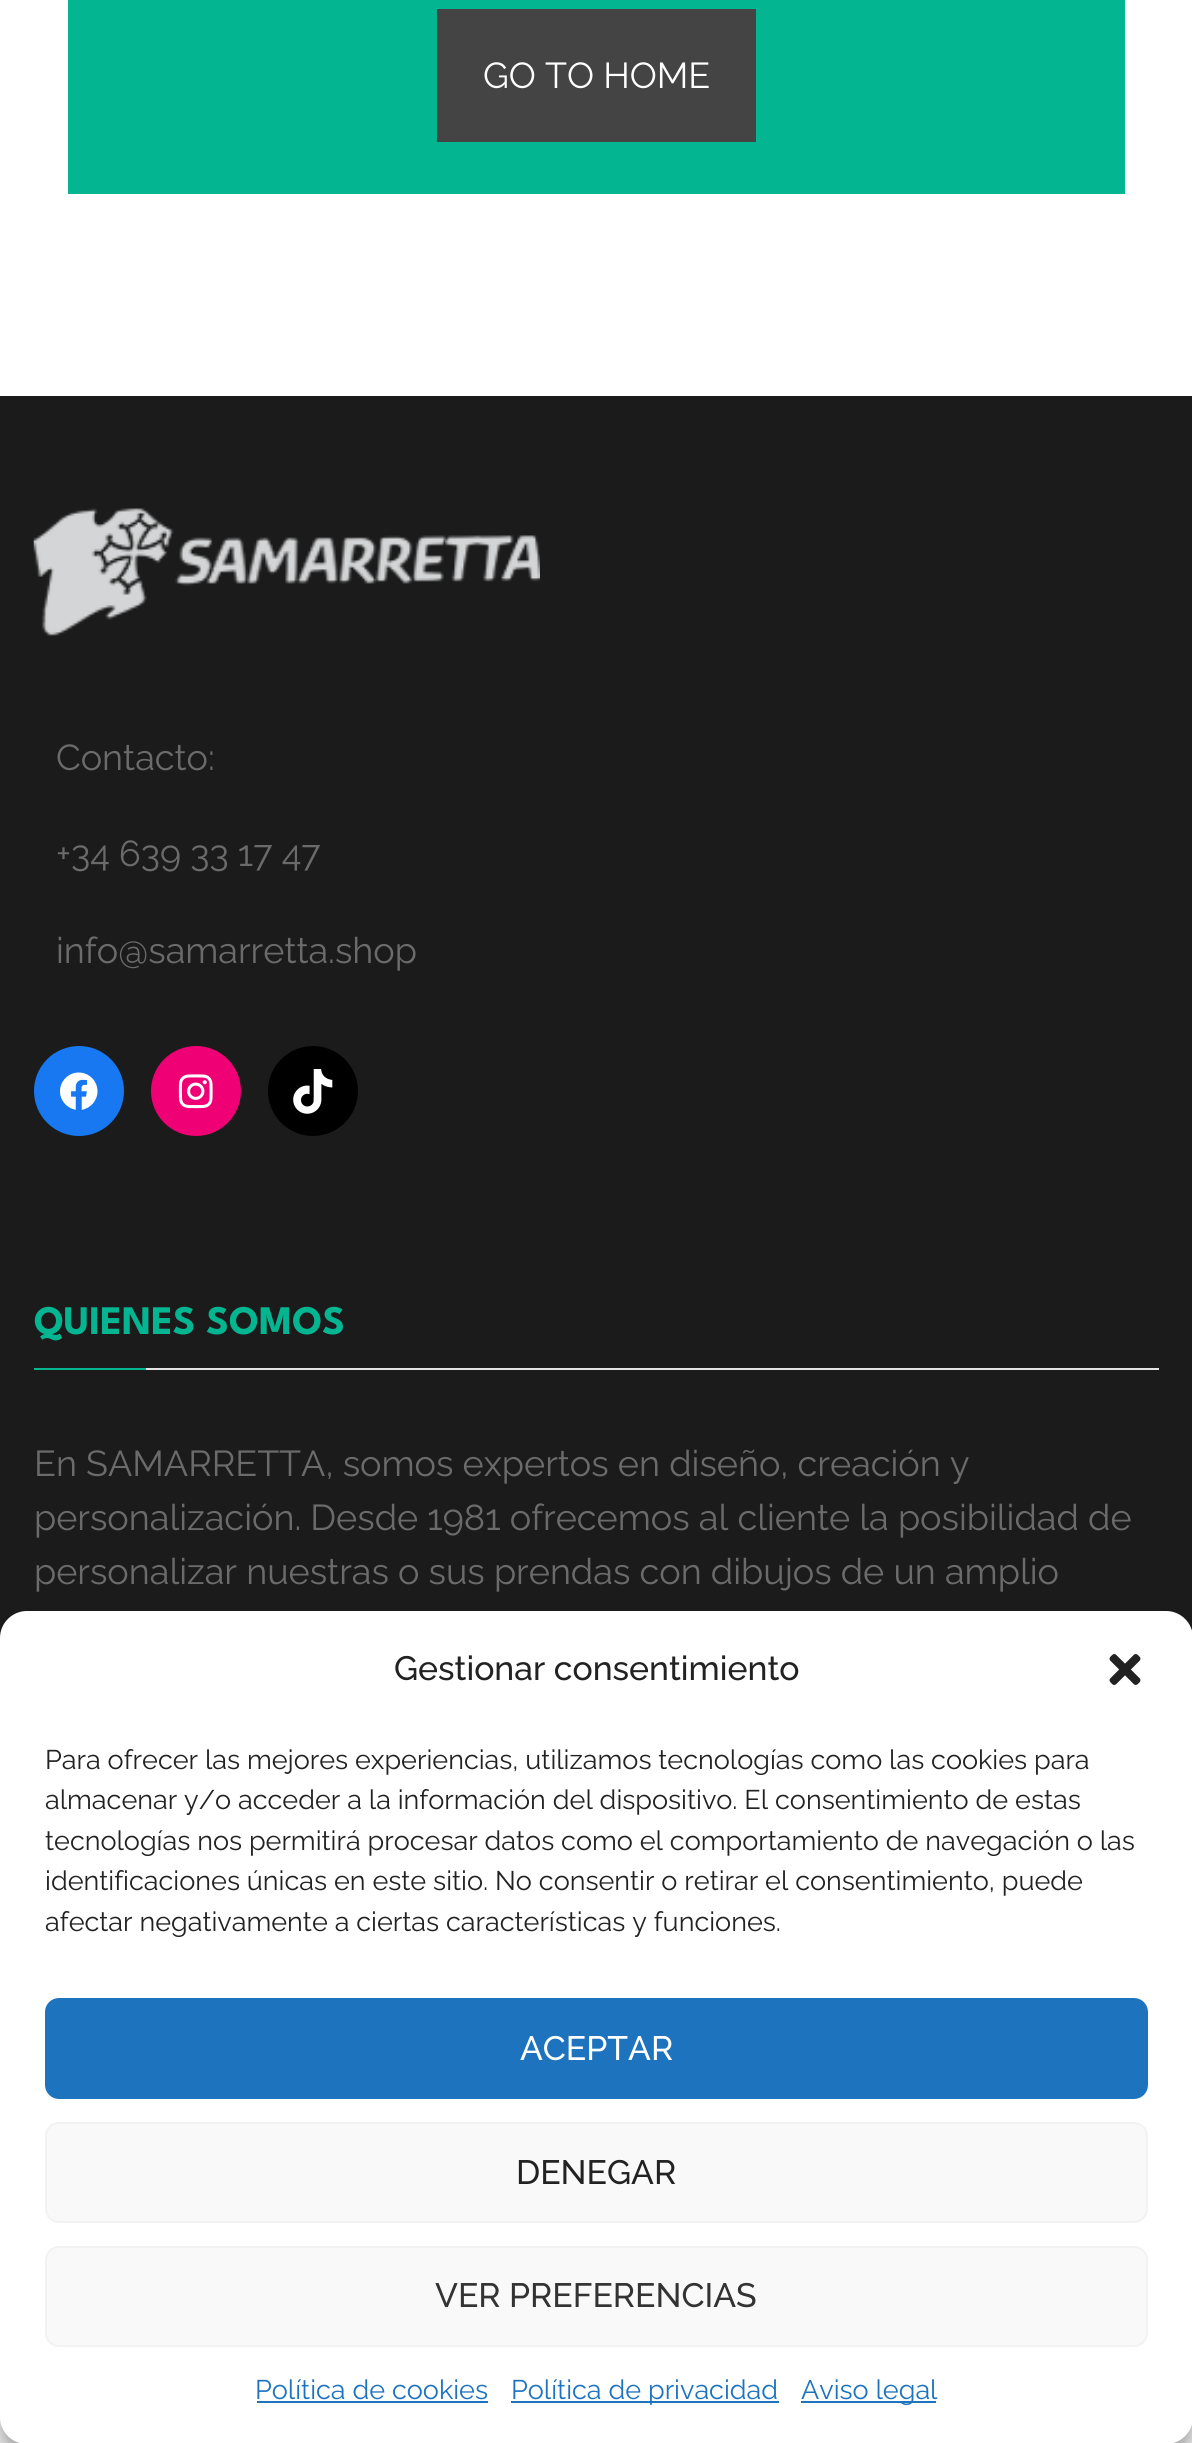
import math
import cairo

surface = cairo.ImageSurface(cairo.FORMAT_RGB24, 1192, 2443)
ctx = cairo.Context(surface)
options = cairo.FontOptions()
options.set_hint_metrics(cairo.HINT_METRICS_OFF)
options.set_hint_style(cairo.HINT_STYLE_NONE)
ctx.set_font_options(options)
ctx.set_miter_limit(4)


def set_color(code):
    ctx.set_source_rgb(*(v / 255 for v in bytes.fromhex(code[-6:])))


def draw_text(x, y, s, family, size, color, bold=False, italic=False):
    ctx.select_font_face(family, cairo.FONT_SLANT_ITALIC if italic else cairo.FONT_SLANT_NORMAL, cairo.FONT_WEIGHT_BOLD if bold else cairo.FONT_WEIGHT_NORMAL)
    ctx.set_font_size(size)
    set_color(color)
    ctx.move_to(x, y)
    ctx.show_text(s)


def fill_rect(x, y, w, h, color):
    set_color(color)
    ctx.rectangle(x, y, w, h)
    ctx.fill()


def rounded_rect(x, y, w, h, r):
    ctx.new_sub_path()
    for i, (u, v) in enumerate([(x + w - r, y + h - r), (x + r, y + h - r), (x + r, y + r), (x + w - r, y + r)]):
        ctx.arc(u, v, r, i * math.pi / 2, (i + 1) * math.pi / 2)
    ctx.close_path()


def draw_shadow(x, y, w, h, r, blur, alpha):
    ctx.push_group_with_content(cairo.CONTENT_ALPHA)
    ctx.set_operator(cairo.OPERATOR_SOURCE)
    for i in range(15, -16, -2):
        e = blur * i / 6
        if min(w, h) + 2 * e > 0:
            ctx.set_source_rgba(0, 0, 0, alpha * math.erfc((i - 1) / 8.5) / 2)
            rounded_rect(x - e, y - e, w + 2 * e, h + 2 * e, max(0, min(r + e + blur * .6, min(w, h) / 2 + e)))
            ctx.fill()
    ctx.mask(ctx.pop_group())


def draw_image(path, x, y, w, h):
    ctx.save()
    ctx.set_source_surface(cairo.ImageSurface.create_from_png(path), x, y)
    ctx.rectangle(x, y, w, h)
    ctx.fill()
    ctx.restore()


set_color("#ffffff")
ctx.paint()
fill_rect(68, 0, 1057, 194, "#04b591")
fill_rect(437, 9, 319, 133, "#444444")
draw_text(483, 88, "GO TO HOME", "Raleway", 36, "#ffffff")
fill_rect(0, 396, 1192, 1242, "#1b1b1b")
draw_image("assets/img1.png", 33, 508, 507, 128)
draw_text(56, 770, "Contacto:", "Raleway", 36, "#6b6b6b")
draw_text(56, 866, "+34 639 33 17 47", "Raleway", 36, "#6b6b6b")
draw_text(56, 963, "info@samarretta.shop", "Raleway", 36, "#6b6b6b")
set_color("#1778f2")
ctx.new_path()
ctx.arc(79, 1091, 45, 0, 2 * math.pi)
ctx.fill()
draw_image("assets/img2.png", 60, 1072, 38, 38)
set_color("#f00075")
ctx.arc(196, 1091, 45, 0, 2 * math.pi)
ctx.fill()
draw_image("assets/img3.png", 178, 1074, 35, 35)
set_color("#000000")
ctx.arc(313, 1091, 45, 0, 2 * math.pi)
ctx.fill()
draw_image("assets/img4.png", 293, 1069, 40, 45)
fill_rect(146, 1368, 1013, 2, "#e4e4e4")
draw_text(34, 1334, "QUIENES SOMOS", "League Spartan", 40.5, "#04b591", bold=True)
fill_rect(34, 1368, 112, 2, "#04b591")
draw_text(34, 1476, "En SAMARRETTA, somos expertos en diseño, creación y", "Raleway", 36, "#6b6b6b")
draw_text(34, 1530, "personalización. Desde 1981 ofrecemos al cliente la posibilidad de", "Raleway", 36, "#6b6b6b")
draw_text(34, 1584, "personalizar nuestras o sus prendas con dibujos de un amplio", "Raleway", 36, "#6b6b6b")
set_color("#000000")
draw_shadow(0, 1625, 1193, 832, 27, 7, 0.23)
draw_shadow(0, 1634, 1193, 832, 27, 22.5, 0.19)
set_color("#ffffff")
rounded_rect(0, 1611, 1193, 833, 27)
ctx.fill()
draw_text(394, 1680, "Gestionar consentimiento", "Raleway Medium", 33.75, "#222222")
draw_image("assets/img5.png", 1109, 1654, 32, 31)
draw_text(45, 1769, "Para ofrecer las mejores experiencias, utilizamos tecnologías como las cookies para", "Raleway", 27, "#222222")
draw_text(45, 1809, "almacenar y/o acceder a la información del dispositivo. El consentimiento de estas", "Raleway", 27, "#222222")
draw_text(45, 1850, "tecnologías nos permitirá procesar datos como el comportamiento de navegación o las", "Raleway", 27, "#222222")
draw_text(45, 1890, "identificaciones únicas en este sitio. No consentir o retirar el consentimiento, puede", "Raleway", 27, "#222222")
draw_text(45, 1931, "afectar negativamente a ciertas características y funciones.", "Raleway", 27, "#222222")
set_color("#1e73be")
rounded_rect(46, 1999, 1101, 99, 13)
ctx.fill_preserve()
ctx.stroke()
draw_text(520, 2060, "ACEPTAR", "Raleway Medium", 33.75, "#ffffff")
set_color("#f9f9f9")
rounded_rect(46, 2123, 1101, 99, 13)
ctx.fill_preserve()
set_color("#f2f2f2")
ctx.stroke()
draw_text(516, 2184, "DENEGAR", "Raleway Medium", 33.75, "#222222")
set_color("#f9f9f9")
rounded_rect(46, 2247, 1101, 99, 13)
ctx.fill_preserve()
set_color("#f2f2f2")
ctx.stroke()
draw_text(435, 2307, "VER PREFERENCIAS", "Raleway Medium", 33.75, "#333333")
draw_text(255, 2399, "Política de cookies", "Raleway", 27, "#1e73be")
fill_rect(257, 2401, 231, 2, "#1e73be")
fill_rect(511, 2401, 268, 2, "#1e73be")
draw_text(511, 2399, "Política de privacidad", "Raleway", 27, "#1e73be")
fill_rect(801, 2401, 135, 2, "#1e73be")
draw_text(801, 2399, "Aviso legal", "Raleway", 27, "#1e73be")
surface.write_to_png("output.png")
